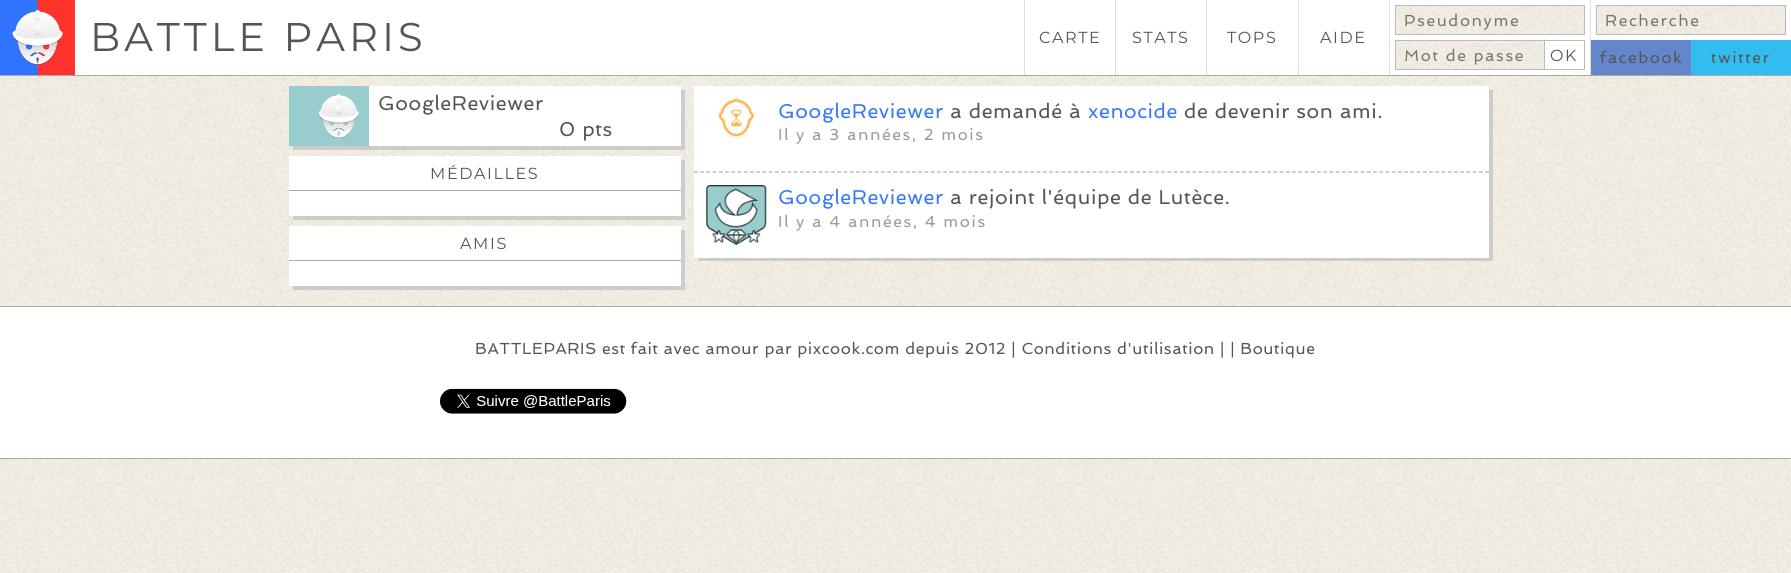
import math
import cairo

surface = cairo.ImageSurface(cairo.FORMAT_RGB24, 1791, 573)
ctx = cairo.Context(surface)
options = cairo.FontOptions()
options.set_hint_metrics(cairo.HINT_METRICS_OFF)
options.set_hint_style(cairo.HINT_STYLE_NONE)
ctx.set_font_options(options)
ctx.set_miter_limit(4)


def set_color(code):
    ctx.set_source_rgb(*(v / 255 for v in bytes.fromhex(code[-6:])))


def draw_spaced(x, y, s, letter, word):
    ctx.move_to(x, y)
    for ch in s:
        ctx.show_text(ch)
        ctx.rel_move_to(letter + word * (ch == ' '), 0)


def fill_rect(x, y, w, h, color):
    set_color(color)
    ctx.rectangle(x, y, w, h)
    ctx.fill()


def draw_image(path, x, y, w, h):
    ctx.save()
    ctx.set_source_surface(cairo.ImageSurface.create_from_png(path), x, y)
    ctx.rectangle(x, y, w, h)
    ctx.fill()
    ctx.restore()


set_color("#ffffff")
ctx.paint()
draw_image("assets/img1.png", 0, 76, 1791, 497)
fill_rect(0, 75, 1791, 1, "#aaaaaa")
draw_image("assets/img2.png", 0, 0, 75, 75)
ctx.select_font_face("Montserrat Thin")
ctx.set_font_size(40)
set_color("#555555")
draw_spaced(90, 51, "BATTLE PARIS", 4, 0)
fill_rect(1024, 0, 1, 75, "#dddddd")
ctx.set_font_size(16)
set_color("#555555")
draw_spaced(1039, 43, "CARTE", 1.6, 0)
fill_rect(1115, 0, 1, 75, "#dddddd")
set_color("#555555")
draw_spaced(1132, 43, "STATS", 1.6, 0)
fill_rect(1206, 0, 1, 75, "#dddddd")
set_color("#555555")
draw_spaced(1227, 43, "TOPS", 1.6, 0)
fill_rect(1298, 0, 1, 75, "#dddddd")
set_color("#555555")
draw_spaced(1320, 43, "AIDE", 1.6, 0)
fill_rect(1389, 0, 1, 75, "#dddddd")
draw_image("assets/img3.png", 1396, 6, 188, 28)
ctx.rectangle(1395.5, 5.5, 189, 29)
set_color("#bbbbbb")
ctx.set_line_width(1)
ctx.stroke()
ctx.select_font_face("Spinnaker")
set_color("#757575")
draw_spaced(1404, 26, "Pseudonyme", 1.6, 0)
draw_image("assets/img4.png", 1396, 41, 148, 28)
ctx.rectangle(1395.5, 40.5, 149, 29)
set_color("#bbbbbb")
ctx.stroke()
set_color("#757575")
draw_spaced(1404, 61, "Mot de passe", 1.6, 0)
fill_rect(1545, 40, 40, 1, "#bbbbbb")
fill_rect(1584, 40, 1, 30, "#bbbbbb")
fill_rect(1545, 69, 40, 1, "#bbbbbb")
ctx.select_font_face("Montserrat Thin")
set_color("#555555")
draw_spaced(1550, 61, "OK", 1.6, 0)
fill_rect(1590, 0, 1, 75, "#dddddd")
draw_image("assets/img5.png", 1597, 5, 190, 30)
ctx.rectangle(1596.5, 5.5, 189, 29)
set_color("#bbbbbb")
ctx.stroke()
ctx.select_font_face("Spinnaker")
set_color("#757575")
draw_spaced(1605, 26, "Recherche", 1.6, 0)
fill_rect(1591, 40, 100, 35, "#6686cc")
set_color("#555555")
draw_spaced(1600, 63, "facebook", 1.6, 0)
fill_rect(1691, 40, 100, 35, "#33bcef")
set_color("#555555")
draw_spaced(1711, 63, "twitter", 1.6, 0)
set_color("#cccccc")
ctx.new_path()
ctx.move_to(293, 146)
ctx.line_to(293, 150)
ctx.line_to(685, 150)
ctx.line_to(685, 90)
ctx.line_to(681, 90)
ctx.line_to(681, 146)
ctx.close_path()
ctx.fill()
fill_rect(369, 86, 312, 60, "#ffffff")
fill_rect(289, 86, 80, 60, "#99cccc")
draw_image("assets/img6.png", 318, 94, 41, 44)
ctx.set_font_size(20)
set_color("#555555")
draw_spaced(378, 110, "GoogleReviewer", 0.6, 0)
draw_spaced(559, 136, "0 pts", 0.6, 0)
set_color("#cccccc")
ctx.new_path()
ctx.move_to(293, 216)
ctx.line_to(293, 220)
ctx.line_to(685, 220)
ctx.line_to(685, 160)
ctx.line_to(681, 160)
ctx.line_to(681, 216)
ctx.close_path()
ctx.fill()
fill_rect(289, 156, 392, 60, "#ffffff")
fill_rect(289, 190, 392, 1, "#aaaaaa")
ctx.select_font_face("Montserrat Thin")
ctx.set_font_size(16)
set_color("#555555")
draw_spaced(430, 179, "MÉDAILLES", 1.6, 0)
set_color("#cccccc")
ctx.new_path()
ctx.move_to(293, 286)
ctx.line_to(293, 290)
ctx.line_to(685, 290)
ctx.line_to(685, 230)
ctx.line_to(681, 230)
ctx.line_to(681, 286)
ctx.close_path()
ctx.fill()
fill_rect(289, 226, 392, 60, "#ffffff")
fill_rect(289, 260, 392, 1, "#aaaaaa")
set_color("#555555")
draw_spaced(460, 249, "AMIS", 1.6, 0)
set_color("#cccccc")
ctx.new_path()
ctx.move_to(698, 258)
ctx.line_to(698, 261)
ctx.line_to(1493, 261)
ctx.line_to(1493, 90)
ctx.line_to(1489, 90)
ctx.line_to(1489, 258)
ctx.close_path()
ctx.fill()
fill_rect(694, 86, 795, 172, "#ffffff")
ctx.new_path()
ctx.move_to(694, 172)
ctx.line_to(1489, 172)
set_color("#aaaaaa")
ctx.set_line_width(1.2)
ctx.set_dash([3.75, 2.48])
ctx.stroke()
draw_image("assets/img7.png", 718, 98, 36, 39)
ctx.select_font_face("Spinnaker")
ctx.set_font_size(20)
set_color("#3678fc")
draw_spaced(778, 118, "GoogleReviewer", 0.6, 0)
set_color("#555555")
draw_spaced(950, 118, "a demandé à", 0.6, 0)
set_color("#3678fc")
draw_spaced(1088, 118, "xenocide", 0.6, 0)
set_color("#555555")
draw_spaced(1184, 118, "de devenir son ami.", 0.6, 0)
ctx.set_font_size(16)
set_color("#999999")
draw_spaced(778, 140, "Il y a 3 années, 2 mois", 1.6, 0)
draw_image("assets/img8.png", 706, 185, 61, 60)
ctx.set_font_size(20)
set_color("#3678fc")
draw_spaced(778, 204, "GoogleReviewer", 0.6, 0)
set_color("#555555")
draw_spaced(950, 204, "a rejoint l'équipe de Lutèce.", 0.6, 0)
ctx.set_font_size(16)
set_color("#999999")
draw_spaced(778, 227, "Il y a 4 années, 4 mois", 1.6, 0)
fill_rect(0, 307, 1791, 151, "#ffffff")
fill_rect(0, 306, 1791, 1, "#aaaaaa")
fill_rect(0, 458, 1791, 1, "#aaaaaa")
set_color("#555555")
draw_spaced(475, 354, "BATTLEPARIS est fait avec amour par pixcook.com depuis 2012 | Conditions d'utilisation | | Boutique", 0.6, 0)
draw_image("assets/img9.png", 440, 388, 187, 26)
surface.write_to_png("output.png")
